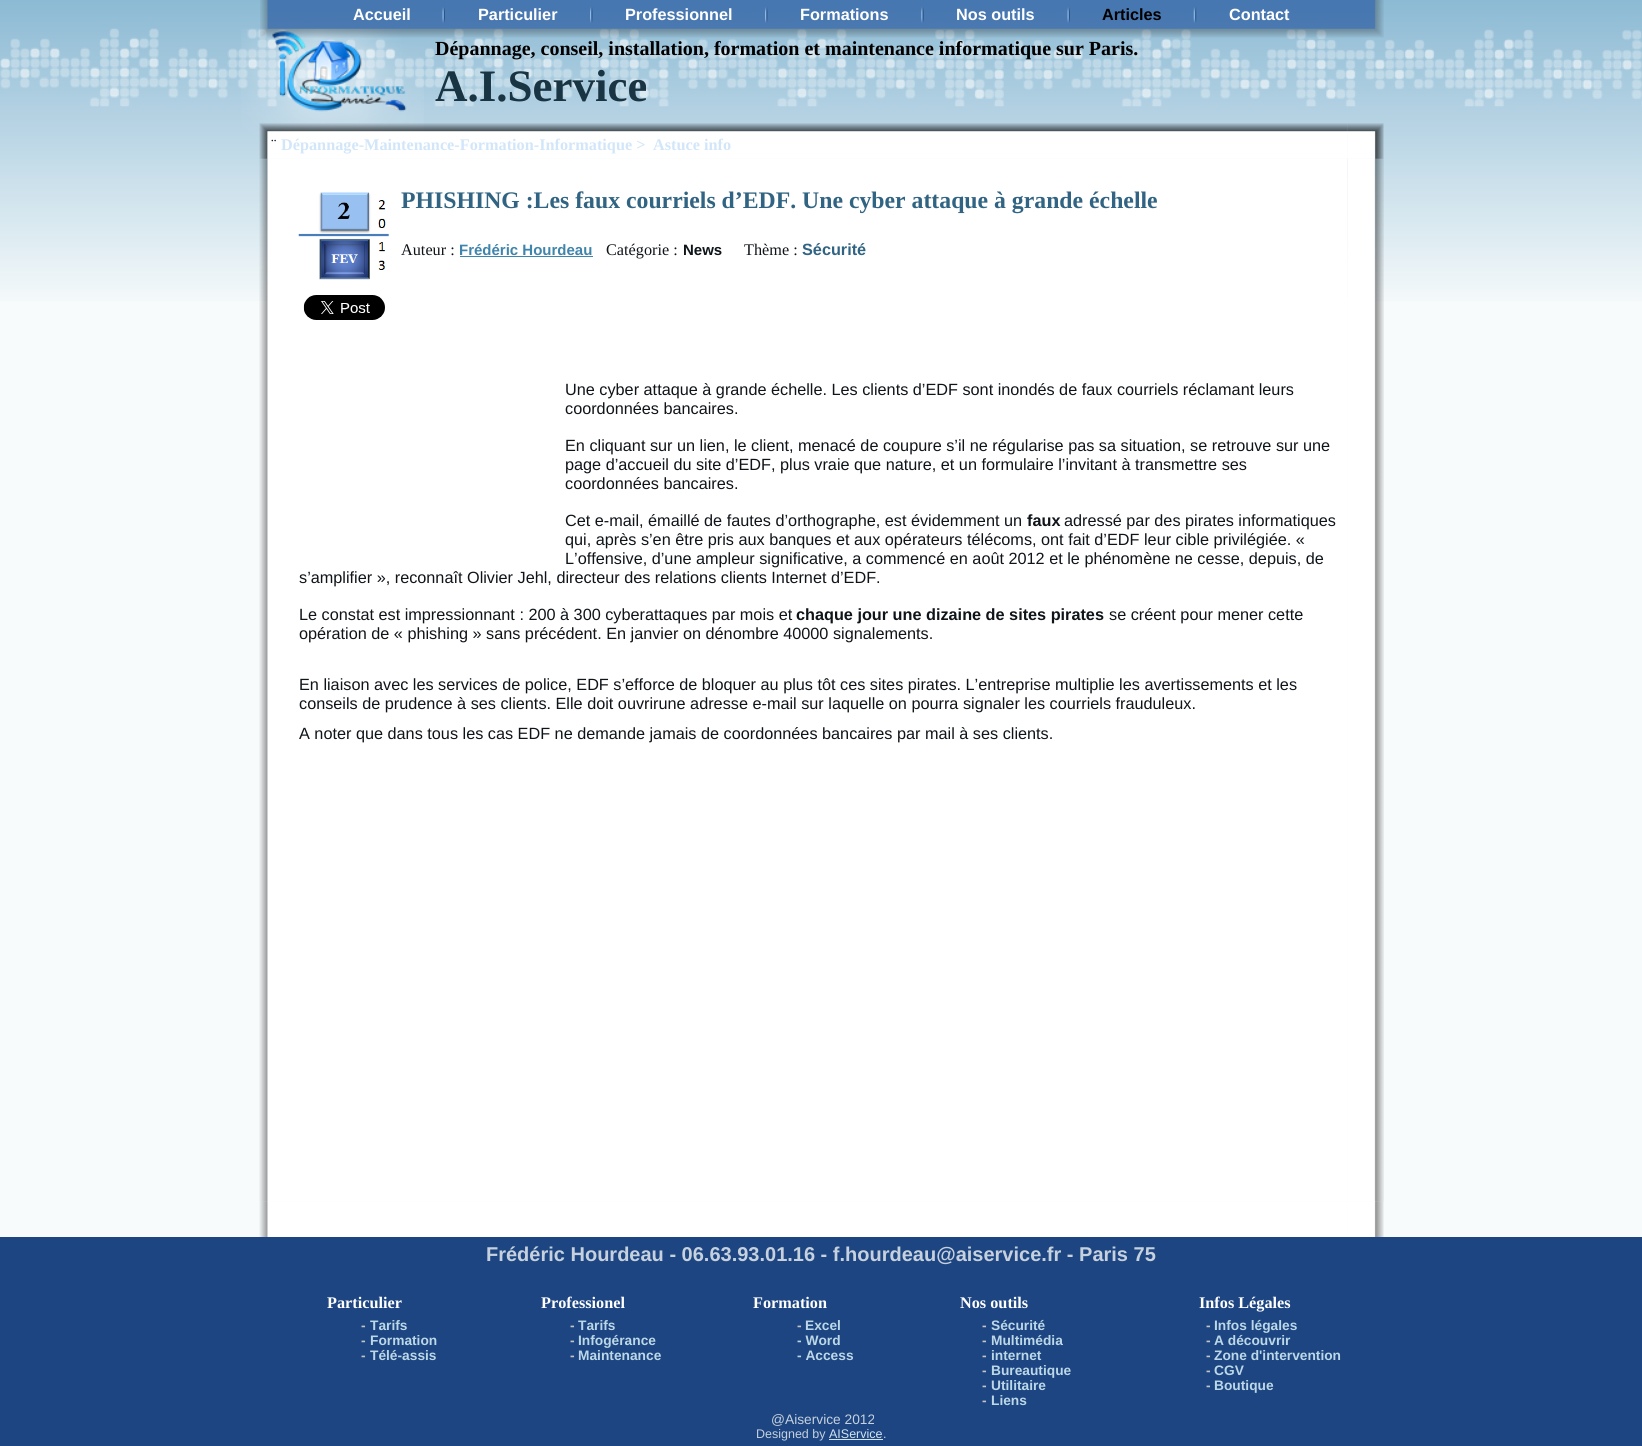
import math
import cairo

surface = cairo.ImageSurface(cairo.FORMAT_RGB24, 1642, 1446)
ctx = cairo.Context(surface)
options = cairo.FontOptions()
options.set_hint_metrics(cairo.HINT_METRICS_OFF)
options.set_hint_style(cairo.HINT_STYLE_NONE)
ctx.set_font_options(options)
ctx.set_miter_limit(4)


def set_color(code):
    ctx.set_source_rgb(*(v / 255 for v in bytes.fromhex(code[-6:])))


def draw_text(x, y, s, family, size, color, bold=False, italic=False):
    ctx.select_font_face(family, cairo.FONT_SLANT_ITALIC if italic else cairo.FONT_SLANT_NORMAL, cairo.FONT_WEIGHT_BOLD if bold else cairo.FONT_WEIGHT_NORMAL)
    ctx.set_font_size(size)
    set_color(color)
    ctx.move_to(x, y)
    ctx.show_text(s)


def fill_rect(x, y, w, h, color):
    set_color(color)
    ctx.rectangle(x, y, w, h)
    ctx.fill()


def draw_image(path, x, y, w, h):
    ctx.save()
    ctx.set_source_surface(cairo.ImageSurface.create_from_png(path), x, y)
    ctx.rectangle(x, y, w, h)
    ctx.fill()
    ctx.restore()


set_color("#f8fbfc")
ctx.paint()
draw_image("assets/img1.png", 0, 0, 1642, 301)
draw_image("assets/img10.png", 0, 28, 1642, 79)
draw_image("assets/img11.png", 241, 28, 183, 110)
draw_image("assets/img2.png", 260, 0, 1105, 38)
draw_image("assets/img3.png", 1365, 0, 19, 38)
draw_text(353, 20, "Accueil", "Liberation Sans", 16.25, "#ffffff", bold=True)
draw_image("assets/img4.png", 442, 7, 3, 16)
draw_text(478, 20, "Particulier", "Liberation Sans", 16.25, "#ffffff", bold=True)
draw_image("assets/img5.png", 590, 7, 3, 16)
draw_text(625, 20, "Professionnel", "Liberation Sans", 16.25, "#ffffff", bold=True)
draw_image("assets/img6.png", 765, 7, 3, 16)
draw_text(800, 20, "Formations", "Liberation Sans", 16.25, "#ffffff", bold=True)
draw_image("assets/img7.png", 921, 7, 3, 16)
draw_text(956, 20, "Nos outils", "Liberation Sans", 16.25, "#ffffff", bold=True)
draw_image("assets/img8.png", 1067, 7, 3, 16)
draw_text(1102, 20, "Articles", "Liberation Sans", 16.25, "#000000", bold=True)
draw_image("assets/img9.png", 1193, 7, 4, 16)
draw_text(1229, 20, "Contact", "Liberation Sans", 16.25, "#ffffff", bold=True)
draw_text(435, 55, "Dépannage, conseil, installation, formation et maintenance informatique sur Paris.", "Liberation Serif", 20, "#000000", bold=True)
draw_text(435, 101, "A.I.Service", "Liberation Serif", 45, "#193443", bold=True)
draw_image("assets/img12.png", 259, 123, 1089, 1114)
draw_image("assets/img13.png", 259, 123, 1089, 36)
draw_image("assets/img18.png", 259, 158, 1089, 1044)
draw_image("assets/img19.png", 1347, 158, 37, 1044)
draw_image("assets/img14.png", 1347, 123, 37, 1114)
draw_image("assets/img15.png", 1347, 123, 37, 36)
draw_text(271, 150, "¨", "Liberation Serif", 16.25, "#0f1419")
draw_text(281, 150, "Dépannage-Maintenance-Formation-Informatique >", "Liberation Serif", 16.25, "#d2e6f9", bold=True)
draw_text(653, 150, "Astuce info", "Liberation Serif", 16.25, "#d2e6f9", bold=True)
draw_image("assets/img16.png", 298, 192, 91, 88)
draw_text(401, 208, "PHISHING :Les faux courriels d’EDF. Une cyber attaque à grande échelle", "Liberation Serif", 23.75, "#306482", bold=True)
draw_text(401, 255, "Auteur :", "Liberation Serif", 16.25, "#0f1419")
draw_text(459, 255, "Frédéric Hourdeau", "Liberation Sans", 15, "#3f84ab", bold=True)
fill_rect(460, 256, 133, 1, "#3f84ab")
draw_text(606, 255, "Catégorie :", "Liberation Serif", 16.25, "#0f1419")
draw_text(683, 255, "News", "Liberation Sans", 15, "#0f1419", bold=True)
draw_text(744, 255, "Thème :", "Liberation Serif", 16.25, "#0f1419")
draw_text(802, 255, "Sécurité", "Liberation Sans", 16.25, "#306482", bold=True)
draw_image("assets/img17.png", 303, 295, 82, 25)
draw_text(565, 395, "Une cyber attaque à grande échelle. Les clients d’EDF sont inondés de faux courriels réclamant leurs", "Liberation Sans", 16.25, "#0f1419")
draw_text(565, 414, "coordonnées bancaires.", "Liberation Sans", 16.25, "#0f1419")
draw_text(565, 451, "En cliquant sur un lien, le client, menacé de coupure s’il ne régularise pas sa situation, se retrouve sur une", "Liberation Sans", 16.25, "#0f1419")
draw_text(565, 470, "page d’accueil du site d’EDF, plus vraie que nature, et un formulaire l’invitant à transmettre ses", "Liberation Sans", 16.25, "#0f1419")
draw_text(565, 489, "coordonnées bancaires.", "Liberation Sans", 16.25, "#0f1419")
draw_text(565, 526, "Cet e-mail, émaillé de fautes d’orthographe, est évidemment un", "Liberation Sans", 16.25, "#0f1419")
draw_text(1027, 526, "faux", "Liberation Sans", 16.25, "#0f1419", bold=True)
draw_text(1064, 526, "adressé par des pirates informatiques", "Liberation Sans", 16.25, "#0f1419")
draw_text(565, 545, "qui, après s’en être pris aux banques et aux opérateurs télécoms, ont fait d’EDF leur cible privilégiée. «", "Liberation Sans", 16.25, "#0f1419")
draw_text(565, 564, "L’offensive, d’une ampleur significative, a commencé en août 2012 et le phénomène ne cesse, depuis, de", "Liberation Sans", 16.25, "#0f1419")
draw_text(299, 583, "s’amplifier », reconnaît Olivier Jehl, directeur des relations clients Internet d’EDF.", "Liberation Sans", 16.25, "#0f1419")
draw_text(299, 620, "Le constat est impressionnant : 200 à 300 cyberattaques par mois et", "Liberation Sans", 16.25, "#0f1419")
draw_text(796, 620, "chaque jour une dizaine de sites pirates", "Liberation Sans", 16.25, "#0f1419", bold=True)
draw_text(1109, 620, "se créent pour mener cette", "Liberation Sans", 16.25, "#0f1419")
draw_text(299, 639, "opération de « phishing » sans précédent. En janvier on dénombre 40000 signalements.", "Liberation Sans", 16.25, "#0f1419")
draw_text(299, 690, "En liaison avec les services de police, EDF s’efforce de bloquer au plus tôt ces sites pirates. L’entreprise multiplie les avertissements et les", "Liberation Sans", 16.25, "#0f1419")
draw_text(299, 709, "conseils de prudence à ses clients. Elle doit ouvrirune adresse e-mail sur laquelle on pourra signaler les courriels frauduleux.", "Liberation Sans", 16.25, "#0f1419")
draw_text(299, 739, "A noter que dans tous les cas EDF ne demande jamais de coordonnées bancaires par mail à ses clients.", "Liberation Sans", 16.25, "#0f1419")
fill_rect(0, 1237, 1642, 209, "#1c4582")
draw_text(486, 1261, "Frédéric Hourdeau - 06.63.93.01.16 - f.hourdeau@aiservice.fr - Paris 75", "Liberation Sans", 20, "#c6d1dd", bold=True)
draw_text(327, 1308, "Particulier", "Liberation Serif", 16.25, "#ffffff", bold=True)
draw_text(541, 1308, "Professionel", "Liberation Serif", 16.25, "#ffffff", bold=True)
draw_text(753, 1308, "Formation", "Liberation Serif", 16.25, "#ffffff", bold=True)
draw_text(960, 1308, "Nos outils", "Liberation Serif", 16.25, "#ffffff", bold=True)
draw_text(1199, 1308, "Infos Légales", "Liberation Serif", 16.25, "#ffffff", bold=True)
draw_text(361, 1330, "-", "Liberation Sans", 13.75, "#c4c4c4", bold=True)
draw_text(370, 1330, "Tarifs", "Liberation Sans", 13.75, "#bcd7e6", bold=True)
draw_text(361, 1345, "-", "Liberation Sans", 13.75, "#c4c4c4", bold=True)
draw_text(370, 1345, "Formation", "Liberation Sans", 13.75, "#bcd7e6", bold=True)
draw_text(361, 1360, "-", "Liberation Sans", 13.75, "#c4c4c4", bold=True)
draw_text(370, 1360, "Télé-assis", "Liberation Sans", 13.75, "#bcd7e6", bold=True)
draw_text(570, 1330, "-", "Liberation Sans", 13.75, "#c4c4c4", bold=True)
draw_text(578, 1330, "Tarifs", "Liberation Sans", 13.75, "#bcd7e6", bold=True)
draw_text(570, 1345, "-", "Liberation Sans", 13.75, "#c4c4c4", bold=True)
draw_text(578, 1345, "Infogérance", "Liberation Sans", 13.75, "#bcd7e6", bold=True)
draw_text(570, 1360, "-", "Liberation Sans", 13.75, "#c4c4c4", bold=True)
draw_text(578, 1360, "Maintenance", "Liberation Sans", 13.75, "#bcd7e6", bold=True)
draw_text(797, 1330, "-", "Liberation Sans", 13.75, "#c4c4c4", bold=True)
draw_text(805, 1330, "Excel", "Liberation Sans", 13.75, "#bcd7e6", bold=True)
draw_text(797, 1345, "- Word", "Liberation Sans", 13.75, "#bcd7e6", bold=True)
draw_text(797, 1360, "- Access", "Liberation Sans", 13.75, "#bcd7e6", bold=True)
draw_text(982, 1330, "-", "Liberation Sans", 13.75, "#c4c4c4", bold=True)
draw_text(991, 1330, "Sécurité", "Liberation Sans", 13.75, "#bcd7e6", bold=True)
draw_text(982, 1345, "-", "Liberation Sans", 13.75, "#c4c4c4", bold=True)
draw_text(991, 1345, "Multimédia", "Liberation Sans", 13.75, "#bcd7e6", bold=True)
draw_text(982, 1360, "-", "Liberation Sans", 13.75, "#c4c4c4", bold=True)
draw_text(991, 1360, "internet", "Liberation Sans", 13.75, "#bcd7e6", bold=True)
draw_text(982, 1375, "-", "Liberation Sans", 13.75, "#c4c4c4", bold=True)
draw_text(991, 1375, "Bureautique", "Liberation Sans", 13.75, "#bcd7e6", bold=True)
draw_text(982, 1390, "-", "Liberation Sans", 13.75, "#c4c4c4", bold=True)
draw_text(991, 1390, "Utilitaire", "Liberation Sans", 13.75, "#bcd7e6", bold=True)
draw_text(982, 1405, "-", "Liberation Sans", 13.75, "#c4c4c4", bold=True)
draw_text(991, 1405, "Liens", "Liberation Sans", 13.75, "#bcd7e6", bold=True)
draw_text(1206, 1330, "-", "Liberation Sans", 13.75, "#c4c4c4", bold=True)
draw_text(1214, 1330, "Infos légales", "Liberation Sans", 13.75, "#bcd7e6", bold=True)
draw_text(1206, 1345, "-", "Liberation Sans", 13.75, "#c4c4c4", bold=True)
draw_text(1214, 1345, "A découvrir", "Liberation Sans", 13.75, "#bcd7e6", bold=True)
draw_text(1206, 1360, "-", "Liberation Sans", 13.75, "#c4c4c4", bold=True)
draw_text(1214, 1360, "Zone d'intervention", "Liberation Sans", 13.75, "#bcd7e6", bold=True)
draw_text(1206, 1375, "-", "Liberation Sans", 13.75, "#c4c4c4", bold=True)
draw_text(1214, 1375, "CGV", "Liberation Sans", 13.75, "#bcd7e6", bold=True)
draw_text(1206, 1390, "-", "Liberation Sans", 13.75, "#c4c4c4", bold=True)
draw_text(1214, 1390, "Boutique", "Liberation Sans", 13.75, "#bcd7e6", bold=True)
draw_text(771, 1424, "@Aiservice 2012", "Liberation Sans", 13.75, "#c6d1dd")
draw_text(756, 1438, "Designed by", "Liberation Sans", 12.5, "#c6d1dd")
draw_text(829, 1438, "AIService", "Liberation Sans", 12.5, "#d2e4ee")
fill_rect(829, 1439, 54, 1, "#d2e4ee")
draw_text(883, 1438, ".", "Liberation Sans", 12.5, "#c6d1dd")
surface.write_to_png("output.png")
